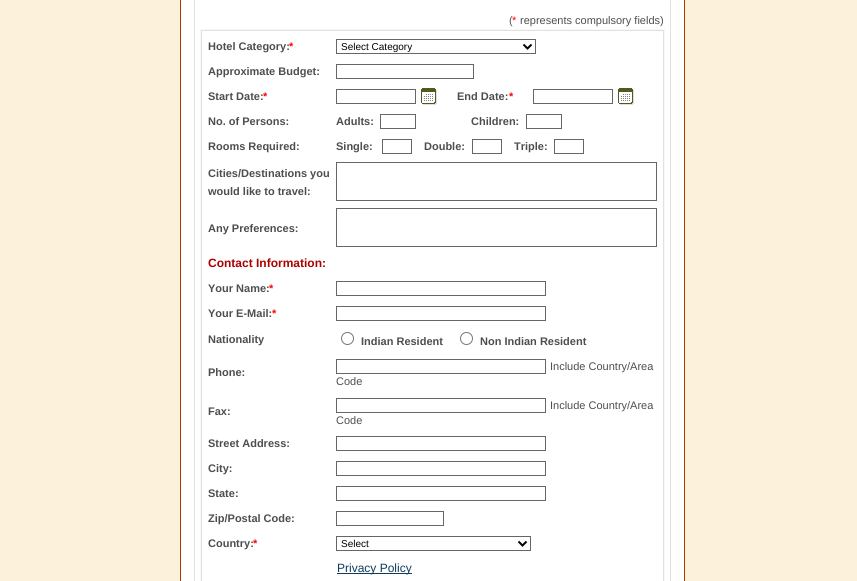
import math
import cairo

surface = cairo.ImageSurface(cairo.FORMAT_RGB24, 857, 581)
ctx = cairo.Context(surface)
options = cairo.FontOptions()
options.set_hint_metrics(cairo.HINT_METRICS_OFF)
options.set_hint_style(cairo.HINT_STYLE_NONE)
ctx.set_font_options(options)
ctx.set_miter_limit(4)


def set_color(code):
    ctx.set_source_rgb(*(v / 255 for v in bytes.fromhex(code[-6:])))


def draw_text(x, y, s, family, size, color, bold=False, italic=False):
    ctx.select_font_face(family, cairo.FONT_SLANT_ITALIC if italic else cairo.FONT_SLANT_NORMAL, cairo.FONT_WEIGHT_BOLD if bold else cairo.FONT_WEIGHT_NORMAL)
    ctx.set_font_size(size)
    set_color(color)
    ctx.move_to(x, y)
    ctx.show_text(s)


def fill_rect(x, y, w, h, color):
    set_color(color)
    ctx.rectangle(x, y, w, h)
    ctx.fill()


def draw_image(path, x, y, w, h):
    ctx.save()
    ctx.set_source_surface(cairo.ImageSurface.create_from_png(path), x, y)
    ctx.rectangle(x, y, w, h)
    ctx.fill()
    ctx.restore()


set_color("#ffffff")
ctx.paint()
fill_rect(0, 0, 180, 581, "#fcf1da")
fill_rect(180, 0, 1, 581, "#ac3900")
ctx.rectangle(194.5, -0.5, 476, 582)
set_color("#e1e1e1")
ctx.set_line_width(1)
ctx.stroke()
draw_text(509, 24, "(", "Liberation Sans", 11, "#4e4e4e")
draw_text(512, 24, "*", "Liberation Sans", 11, "#ff0000")
draw_text(520, 24, "represents compulsory fields)", "Liberation Sans", 11, "#4e4e4e")
fill_rect(200, 29, 465, 552, "#f8f8f8")
set_color("#ffffff")
ctx.rectangle(201.5, 30.5, 462, 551)
ctx.fill_preserve()
set_color("#e1e1e1")
ctx.stroke()
draw_text(208, 50, "Hotel Category:", "Liberation Sans", 11, "#4e4e4e", bold=True)
draw_text(289, 50, "*", "Liberation Sans", 11, "#ff0000", bold=True)
ctx.rectangle(336.5, 39.5, 199, 14)
set_color("#666666")
ctx.stroke()
ctx.new_path()
ctx.move_to(523.5, 44.5)
ctx.line_to(527.5, 48.5)
ctx.line_to(531.5, 44.5)
set_color("#000000")
ctx.set_line_width(2)
ctx.stroke()
draw_text(341, 50, "Select Category", "Liberation Sans", 10, "#000000")
draw_text(208, 75, "Approximate Budget:", "Liberation Sans", 11, "#4e4e4e", bold=True)
ctx.rectangle(336.5, 64.5, 137, 14)
set_color("#666666")
ctx.set_line_width(1)
ctx.stroke()
draw_text(208, 100, "Start Date:", "Liberation Sans", 11, "#4e4e4e", bold=True)
draw_text(263, 100, "*", "Liberation Sans", 11, "#ff0000", bold=True)
ctx.rectangle(336.5, 89.5, 79, 14)
set_color("#666666")
ctx.stroke()
draw_image("assets/img1.png", 421, 88, 16, 17)
draw_text(457, 100, "End Date:", "Liberation Sans", 11, "#4e4e4e", bold=True)
draw_text(509, 100, "*", "Liberation Sans", 11, "#ff0000", bold=True)
ctx.rectangle(533.5, 89.5, 79, 14)
set_color("#666666")
ctx.stroke()
draw_image("assets/img1.png", 618, 88, 16, 17)
draw_text(208, 125, "No. of Persons:", "Liberation Sans", 11, "#4e4e4e", bold=True)
draw_text(336, 125, "Adults:", "Liberation Sans", 11, "#4e4e4e", bold=True)
ctx.rectangle(380.5, 114.5, 35, 14)
set_color("#666666")
ctx.stroke()
draw_text(471, 125, "Children:", "Liberation Sans", 11, "#4e4e4e", bold=True)
ctx.rectangle(526.5, 114.5, 35, 14)
set_color("#666666")
ctx.stroke()
draw_text(208, 150, "Rooms Required:", "Liberation Sans", 11, "#4e4e4e", bold=True)
draw_text(336, 150, "Single:", "Liberation Sans", 11, "#4e4e4e", bold=True)
ctx.rectangle(382.5, 139.5, 29, 14)
set_color("#666666")
ctx.stroke()
draw_text(424, 150, "Double:", "Liberation Sans", 11, "#4e4e4e", bold=True)
ctx.rectangle(472.5, 139.5, 29, 14)
set_color("#666666")
ctx.stroke()
draw_text(514, 150, "Triple:", "Liberation Sans", 11, "#4e4e4e", bold=True)
ctx.rectangle(554.5, 139.5, 29, 14)
set_color("#666666")
ctx.stroke()
draw_text(208, 177, "Cities/Destinations you", "Liberation Sans", 11, "#4e4e4e", bold=True)
draw_text(208, 195, "would like to travel:", "Liberation Sans", 11, "#4e4e4e", bold=True)
ctx.rectangle(336.5, 162.5, 320, 38)
set_color("#666666")
ctx.stroke()
draw_text(208, 232, "Any Preferences:", "Liberation Sans", 11, "#4e4e4e", bold=True)
ctx.rectangle(336.5, 208.5, 320, 38)
set_color("#666666")
ctx.stroke()
draw_text(208, 267, "Contact Information:", "Liberation Sans", 12, "#ad0000", bold=True)
draw_text(208, 292, "Your Name:", "Liberation Sans", 11, "#4e4e4e", bold=True)
draw_text(269, 292, "*", "Liberation Sans", 11, "#ff0000", bold=True)
ctx.rectangle(336.5, 281.5, 209, 14)
set_color("#666666")
ctx.stroke()
draw_text(208, 317, "Your E-Mail:", "Liberation Sans", 11, "#4e4e4e", bold=True)
draw_text(272, 317, "*", "Liberation Sans", 11, "#ff0000", bold=True)
ctx.rectangle(336.5, 306.5, 209, 14)
set_color("#666666")
ctx.stroke()
draw_text(208, 343, "Nationality", "Liberation Sans", 11, "#4e4e4e", bold=True)
ctx.new_path()
ctx.arc(347.5, 338.5, 6, 0, 2 * math.pi)
set_color("#767676")
ctx.stroke()
draw_text(361, 345, "Indian Resident", "Liberation Sans", 11, "#4e4e4e", bold=True)
ctx.new_path()
ctx.arc(466.5, 338.5, 6, 0, 2 * math.pi)
set_color("#767676")
ctx.stroke()
draw_text(480, 345, "Non Indian Resident", "Liberation Sans", 11, "#4e4e4e", bold=True)
draw_text(208, 376, "Phone:", "Liberation Sans", 11, "#4e4e4e", bold=True)
ctx.rectangle(336.5, 359.5, 209, 14)
set_color("#666666")
ctx.stroke()
draw_text(550, 370, "Include Country/Area", "Liberation Sans", 11, "#4e4e4e")
draw_text(336, 385, "Code", "Liberation Sans", 11, "#4e4e4e")
draw_text(208, 415, "Fax:", "Liberation Sans", 11, "#4e4e4e", bold=True)
ctx.rectangle(336.5, 398.5, 209, 14)
set_color("#666666")
ctx.stroke()
draw_text(550, 409, "Include Country/Area", "Liberation Sans", 11, "#4e4e4e")
draw_text(336, 424, "Code", "Liberation Sans", 11, "#4e4e4e")
draw_text(208, 447, "Street Address:", "Liberation Sans", 11, "#4e4e4e", bold=True)
ctx.rectangle(336.5, 436.5, 209, 14)
set_color("#666666")
ctx.stroke()
draw_text(208, 472, "City:", "Liberation Sans", 11, "#4e4e4e", bold=True)
ctx.rectangle(336.5, 461.5, 209, 14)
set_color("#666666")
ctx.stroke()
draw_text(208, 497, "State:", "Liberation Sans", 11, "#4e4e4e", bold=True)
ctx.rectangle(336.5, 486.5, 209, 14)
set_color("#666666")
ctx.stroke()
draw_text(208, 522, "Zip/Postal Code:", "Liberation Sans", 11, "#4e4e4e", bold=True)
ctx.rectangle(336.5, 511.5, 107, 14)
set_color("#666666")
ctx.stroke()
draw_text(208, 547, "Country:", "Liberation Sans", 11, "#4e4e4e", bold=True)
draw_text(253, 547, "*", "Liberation Sans", 11, "#ff0000", bold=True)
ctx.rectangle(336.5, 536.5, 194, 14)
set_color("#666666")
ctx.stroke()
ctx.new_path()
ctx.move_to(518.5, 541.5)
ctx.line_to(522.5, 545.5)
ctx.line_to(526.5, 541.5)
set_color("#000000")
ctx.set_line_width(2)
ctx.stroke()
draw_text(341, 547, "Select", "Liberation Sans", 10, "#000000")
fill_rect(337, 573, 75, 1, "#0e3c5c")
draw_text(337, 572, "Privacy Policy", "Liberation Sans", 12, "#0e3c5c")
fill_rect(685, 0, 172, 581, "#fcf1da")
fill_rect(684, 0, 1, 581, "#ac3900")
surface.write_to_png("output.png")
